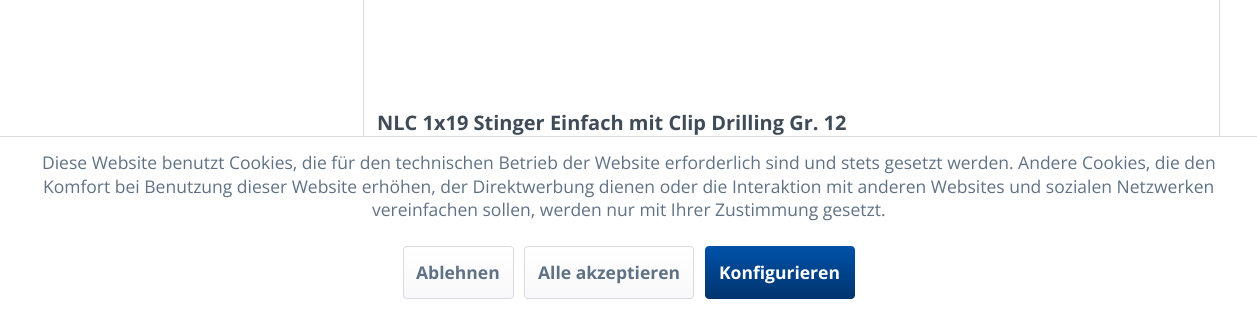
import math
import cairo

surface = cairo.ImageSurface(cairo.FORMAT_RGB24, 1257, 311)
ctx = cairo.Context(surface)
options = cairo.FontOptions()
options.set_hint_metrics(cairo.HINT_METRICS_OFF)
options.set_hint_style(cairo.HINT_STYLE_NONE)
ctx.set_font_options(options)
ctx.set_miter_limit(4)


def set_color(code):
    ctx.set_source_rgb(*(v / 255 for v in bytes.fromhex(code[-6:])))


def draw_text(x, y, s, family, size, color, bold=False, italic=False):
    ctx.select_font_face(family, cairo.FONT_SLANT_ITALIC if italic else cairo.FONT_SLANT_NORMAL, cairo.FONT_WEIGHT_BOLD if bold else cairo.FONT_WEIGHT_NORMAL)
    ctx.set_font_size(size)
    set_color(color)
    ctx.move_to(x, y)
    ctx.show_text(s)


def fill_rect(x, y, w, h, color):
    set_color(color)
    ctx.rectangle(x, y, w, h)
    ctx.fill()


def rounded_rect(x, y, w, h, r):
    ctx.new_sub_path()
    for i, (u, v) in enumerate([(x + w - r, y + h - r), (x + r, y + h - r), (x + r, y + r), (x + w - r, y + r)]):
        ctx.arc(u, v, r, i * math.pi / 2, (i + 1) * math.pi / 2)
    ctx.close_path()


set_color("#ffffff")
ctx.paint()
ctx.rectangle(363.5, -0.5, 856, 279)
set_color("#dadae5")
ctx.set_line_width(1)
ctx.stroke()
draw_text(377, 130, "NLC 1x19 Stinger Einfach mit Clip Drilling Gr. 12", "Open Sans", 20, "#3f4c58", bold=True)
fill_rect(363, 137, 857, 142, "#ffffff")
fill_rect(0, 136, 1257, 1, "#dadae5")
draw_text(42, 169, "Diese Website benutzt Cookies, die für den technischen Betrieb der Website erforderlich sind und stets gesetzt werden. Andere Cookies, die den", "Open Sans", 17.5, "#5f7285")
draw_text(43, 193, "Komfort bei Benutzung dieser Website erhöhen, der Direktwerbung dienen oder die Interaktion mit anderen Websites und sozialen Netzwerken", "Open Sans", 17.5, "#5f7285")
draw_text(372, 216, "vereinfachen sollen, werden nur mit Ihrer Zustimmung gesetzt.", "Open Sans", 17.5, "#5f7285")
gradient = cairo.LinearGradient(458, 248, 458, 298)
gradient.add_color_stop_rgba(0, 1, 1, 1, 1)
gradient.add_color_stop_rgba(1, 0.973, 0.973, 0.98, 1)
ctx.set_source(gradient)
rounded_rect(404, 248, 109, 50, 2.5)
ctx.fill()
rounded_rect(403.5, 246.5, 110, 52, 3.5)
set_color("#dadae5")
ctx.stroke()
draw_text(416, 279, "Ablehnen", "Open Sans", 17.5, "#5f7285", bold=True)
gradient = cairo.LinearGradient(609, 248, 609, 298)
gradient.add_color_stop_rgba(0, 1, 1, 1, 1)
gradient.add_color_stop_rgba(1, 0.973, 0.973, 0.98, 1)
ctx.set_source(gradient)
rounded_rect(525, 248, 168, 50, 2.5)
ctx.fill()
rounded_rect(524.5, 246.5, 169, 52, 3.5)
set_color("#dadae5")
ctx.stroke()
draw_text(538, 279, "Alle akzeptieren", "Open Sans", 17.5, "#5f7285", bold=True)
gradient = cairo.LinearGradient(780, 246, 780, 299)
gradient.add_color_stop_rgba(0, 0, 0.318, 0.663, 1)
gradient.add_color_stop_rgba(1, 0, 0.204, 0.424, 1)
ctx.set_source(gradient)
rounded_rect(705, 246, 150, 53, 4)
ctx.fill()
draw_text(719, 279, "Konfigurieren", "Open Sans", 17.5, "#ffffff", bold=True)
surface.write_to_png("output.png")
